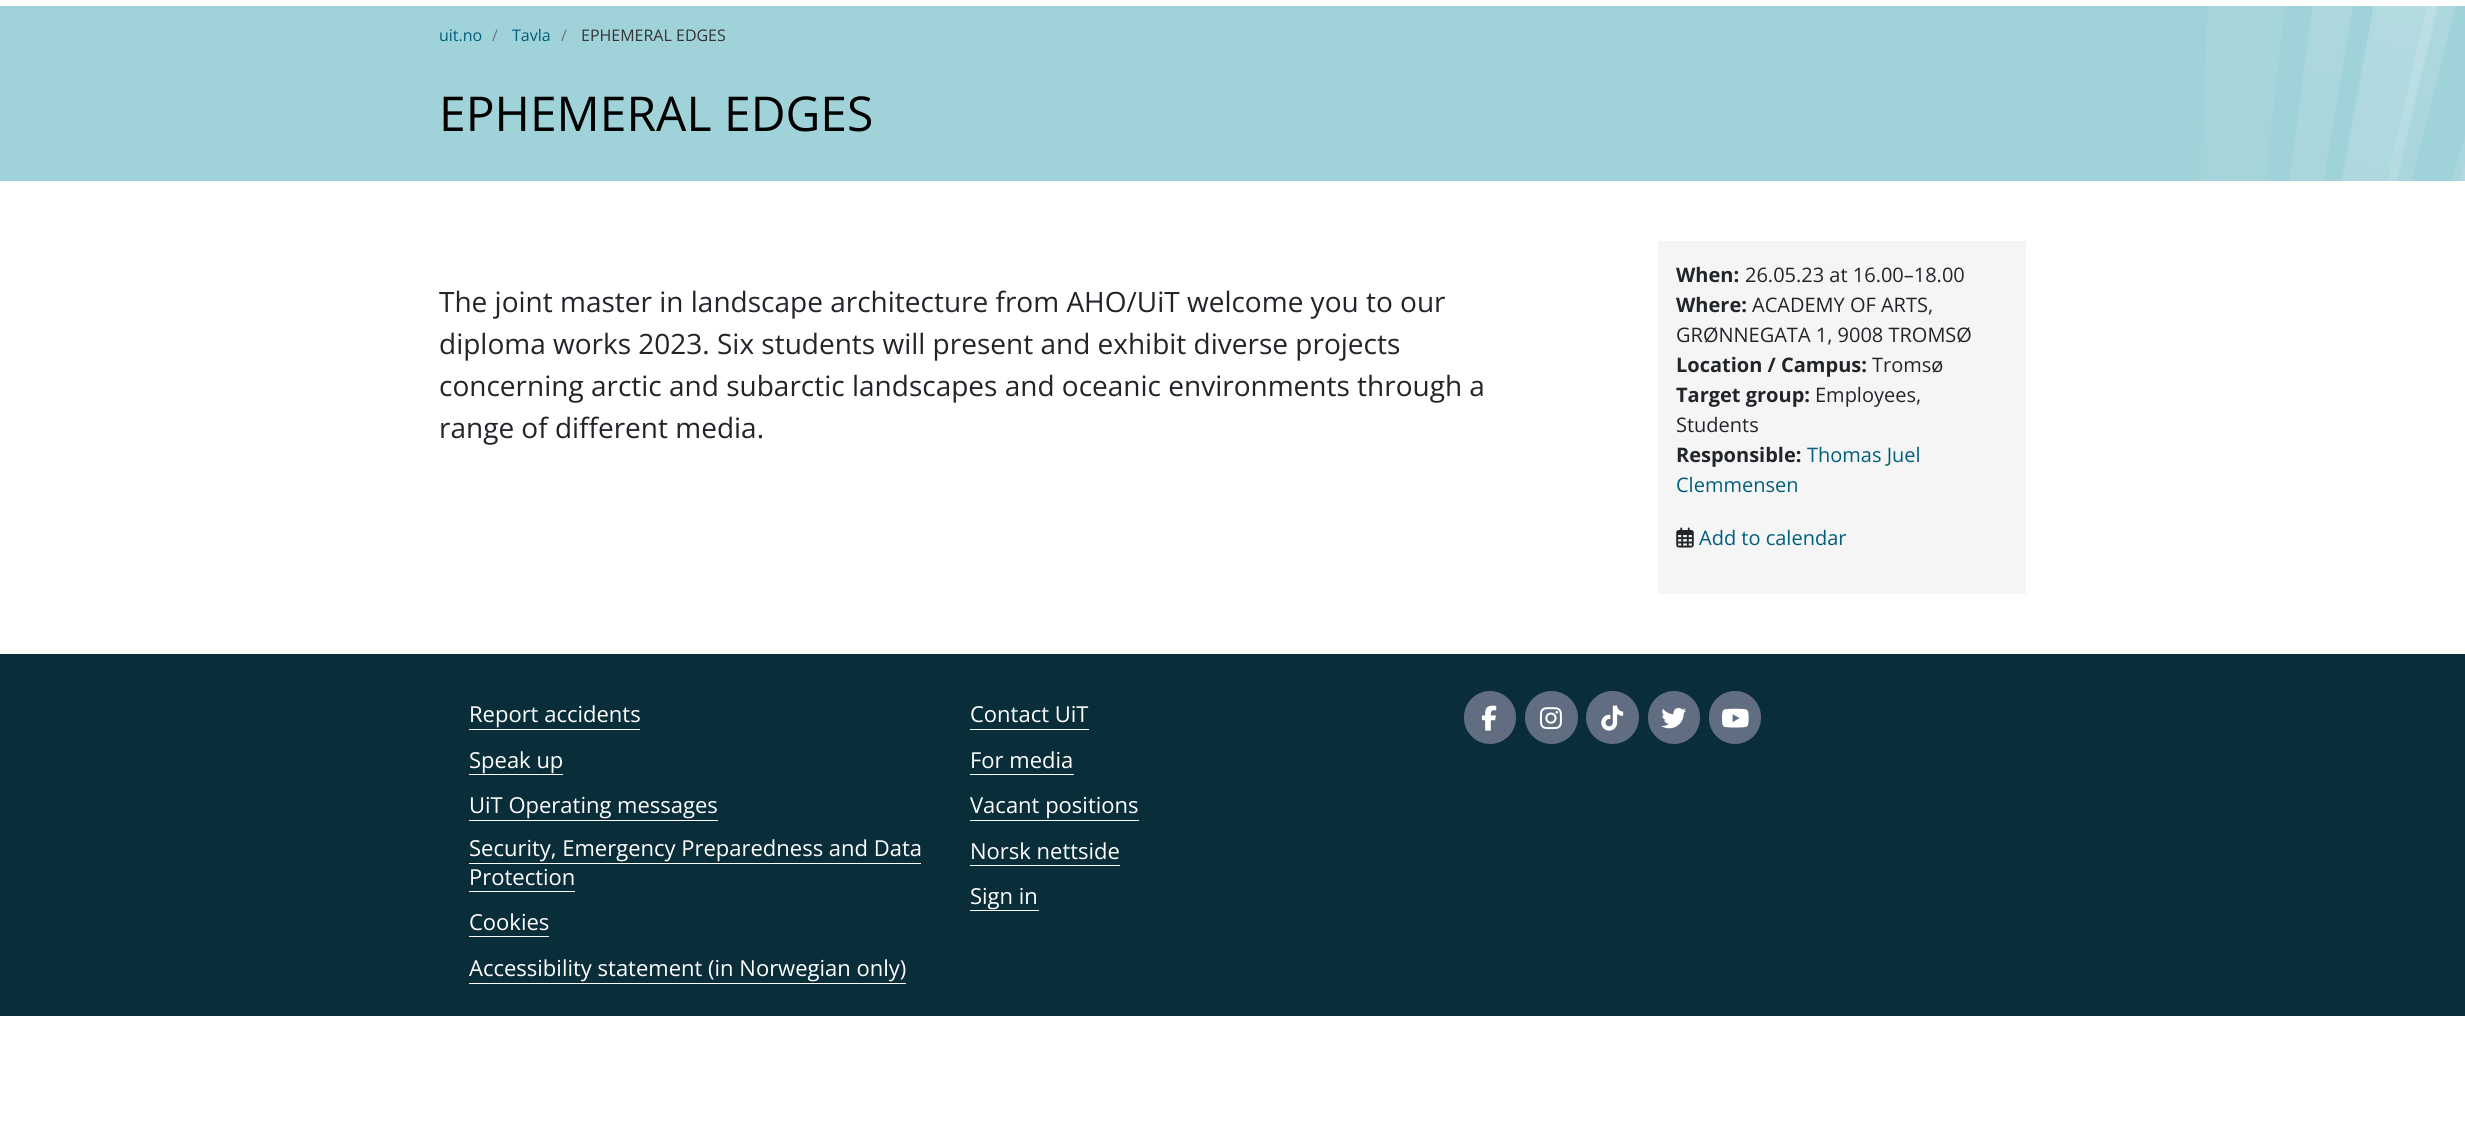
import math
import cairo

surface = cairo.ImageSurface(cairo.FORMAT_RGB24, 2465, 1148)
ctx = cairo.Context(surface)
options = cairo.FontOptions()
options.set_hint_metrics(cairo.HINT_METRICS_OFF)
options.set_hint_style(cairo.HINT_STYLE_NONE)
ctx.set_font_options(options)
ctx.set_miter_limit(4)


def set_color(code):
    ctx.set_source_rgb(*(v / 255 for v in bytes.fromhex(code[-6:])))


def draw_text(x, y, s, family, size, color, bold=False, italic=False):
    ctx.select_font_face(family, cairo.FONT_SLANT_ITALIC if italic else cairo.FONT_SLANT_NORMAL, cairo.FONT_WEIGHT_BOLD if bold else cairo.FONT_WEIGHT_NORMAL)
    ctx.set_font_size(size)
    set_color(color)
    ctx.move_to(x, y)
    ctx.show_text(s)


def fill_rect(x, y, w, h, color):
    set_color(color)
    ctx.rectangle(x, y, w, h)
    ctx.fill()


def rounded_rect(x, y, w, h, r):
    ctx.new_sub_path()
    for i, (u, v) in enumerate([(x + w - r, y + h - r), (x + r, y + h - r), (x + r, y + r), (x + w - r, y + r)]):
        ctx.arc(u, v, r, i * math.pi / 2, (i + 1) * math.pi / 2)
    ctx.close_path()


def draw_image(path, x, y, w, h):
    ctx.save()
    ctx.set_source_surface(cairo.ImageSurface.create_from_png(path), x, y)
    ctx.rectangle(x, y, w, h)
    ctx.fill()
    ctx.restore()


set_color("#ffffff")
ctx.paint()
fill_rect(0, 6, 2465, 175, "#a0d2d9")
draw_image("assets/img1.png", 2200, 6, 265, 175)
draw_text(439, 41, "uit.no", "Open Sans", 16, "#005e7a")
draw_text(492, 41, "/", "Open Sans", 16, "#6c757d")
draw_text(512, 41, "Tavla", "Open Sans", 16, "#005e7a")
draw_text(561, 41, "/", "Open Sans", 16, "#6c757d")
draw_text(581, 41, "EPHEMERAL EDGES", "Open Sans", 16, "#333333")
draw_text(439, 131, "EPHEMERAL EDGES", "Open Sans", 48, "#000000")
draw_text(439, 312, "The joint master in landscape architecture from AHO/UiT welcome you to our", "Open Sans", 28, "#212529")
draw_text(439, 354, "diploma works 2023. Six students will present and exhibit diverse projects", "Open Sans", 28, "#212529")
draw_text(439, 396, "concerning arctic and subarctic landscapes and oceanic environments through a", "Open Sans", 28, "#212529")
draw_text(439, 438, "range of different media.", "Open Sans", 28, "#212529")
fill_rect(1658, 241, 368, 353, "#f5f5f5")
draw_text(1676, 282, "When:", "Open Sans", 20, "#212529", bold=True)
draw_text(1745, 282, "26.05.23 at 16.00–18.00", "Open Sans", 20, "#212529")
draw_text(1676, 312, "Where:", "Open Sans", 20, "#212529", bold=True)
draw_text(1752, 312, "ACADEMY OF ARTS,", "Open Sans", 20, "#212529")
draw_text(1676, 342, "GRØNNEGATA 1, 9008 TROMSØ", "Open Sans", 20, "#212529")
draw_text(1676, 372, "Location / Campus:", "Open Sans", 20, "#212529", bold=True)
draw_text(1872, 372, "Tromsø", "Open Sans", 20, "#212529")
draw_text(1676, 402, "Target group:", "Open Sans", 20, "#212529", bold=True)
draw_text(1815, 402, "Employees,", "Open Sans", 20, "#212529")
draw_text(1676, 432, "Students", "Open Sans", 20, "#212529")
draw_text(1676, 462, "Responsible:", "Open Sans", 20, "#212529", bold=True)
draw_text(1807, 462, "Thomas Juel", "Open Sans", 20, "#005e7a")
draw_text(1676, 492, "Clemmensen", "Open Sans", 20, "#005e7a")
draw_image("assets/img2.png", 1676, 527, 18, 21)
draw_text(1699, 545, "Add to calendar", "Open Sans", 20, "#005e7a")
fill_rect(0, 654, 2465, 362, "#0a2d3a")
draw_text(469, 722, "Report accidents", "Open Sans", 22, "#ffffff")
fill_rect(469, 729, 171, 1, "#ffffff")
draw_text(469, 768, "Speak up", "Open Sans", 22, "#ffffff")
fill_rect(469, 774, 94, 1, "#ffffff")
draw_text(469, 813, "UiT Operating messages", "Open Sans", 22, "#ffffff")
fill_rect(469, 820, 249, 1, "#ffffff")
draw_text(469, 856, "Security, Emergency Preparedness and Data", "Open Sans", 22, "#ffffff")
fill_rect(469, 863, 452, 1, "#ffffff")
draw_text(469, 885, "Protection", "Open Sans", 22, "#ffffff")
fill_rect(469, 891, 106, 1, "#ffffff")
draw_text(469, 930, "Cookies", "Open Sans", 22, "#ffffff")
fill_rect(469, 936, 80, 1, "#ffffff")
draw_text(469, 976, "Accessibility statement (in Norwegian only)", "Open Sans", 22, "#ffffff")
fill_rect(469, 983, 437, 1, "#ffffff")
draw_text(970, 722, "Contact UiT", "Open Sans", 22, "#ffffff")
fill_rect(970, 729, 119, 1, "#ffffff")
draw_text(970, 768, "For media", "Open Sans", 22, "#ffffff")
fill_rect(970, 774, 104, 1, "#ffffff")
draw_text(970, 813, "Vacant positions", "Open Sans", 22, "#ffffff")
fill_rect(970, 820, 169, 1, "#ffffff")
draw_text(970, 859, "Norsk nettside", "Open Sans", 22, "#ffffff")
fill_rect(970, 865, 150, 1, "#ffffff")
draw_text(970, 904, "Sign in", "Open Sans", 22, "#ffffff")
fill_rect(970, 910, 69, 1, "#ffffff")
set_color("#616e81")
rounded_rect(1464, 691, 52, 53, 26)
ctx.fill()
draw_image("assets/img3.png", 1481, 705, 16, 26)
ctx.arc(1551.5, 717.5, 26.5, 0, 2 * math.pi)
ctx.fill()
draw_image("assets/img4.png", 1540, 707, 22, 23)
ctx.arc(1612.5, 717.5, 26.5, 0, 2 * math.pi)
ctx.fill()
draw_image("assets/img5.png", 1601, 705, 23, 26)
rounded_rect(1648, 691, 52, 53, 26)
ctx.fill()
draw_image("assets/img6.png", 1661, 708, 26, 21)
rounded_rect(1709, 691, 52, 53, 26)
ctx.fill()
draw_image("assets/img7.png", 1722, 708, 27, 20)
surface.write_to_png("output.png")
